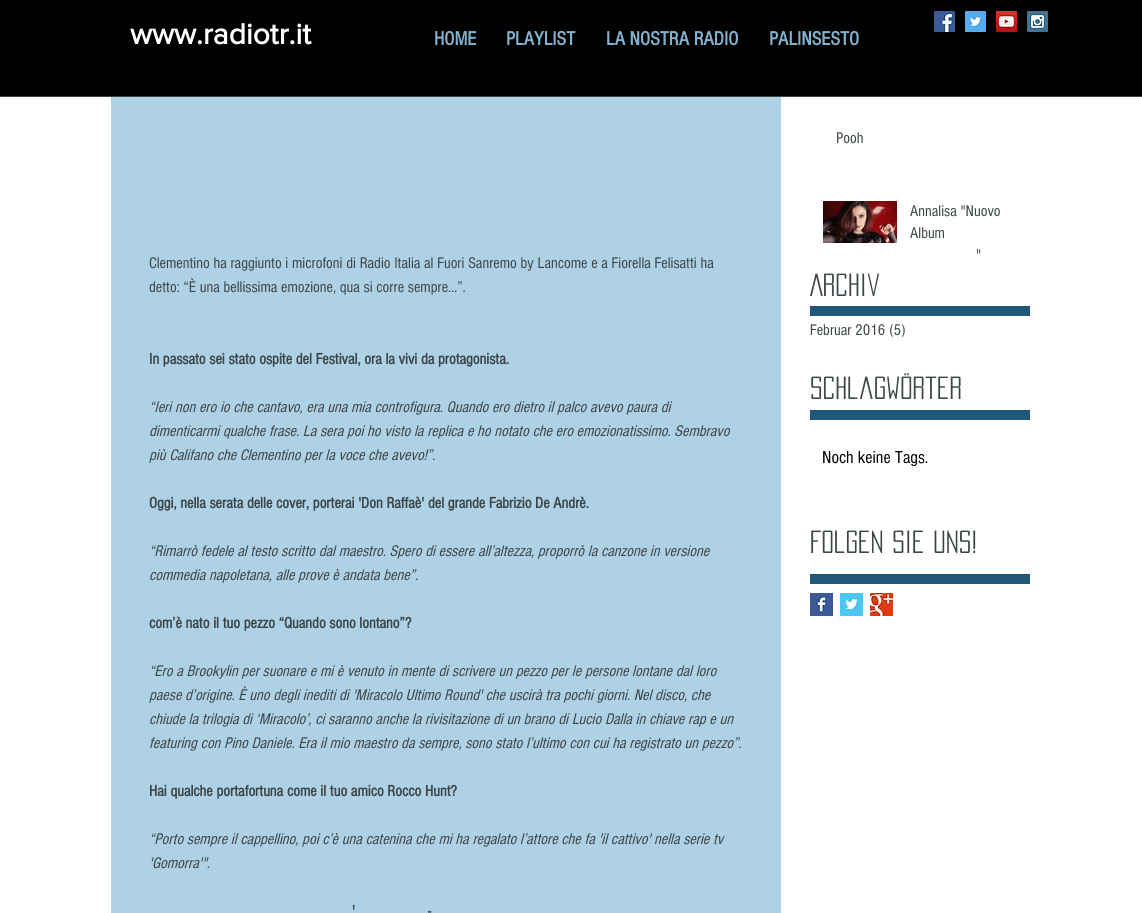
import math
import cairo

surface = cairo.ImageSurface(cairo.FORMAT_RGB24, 1142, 913)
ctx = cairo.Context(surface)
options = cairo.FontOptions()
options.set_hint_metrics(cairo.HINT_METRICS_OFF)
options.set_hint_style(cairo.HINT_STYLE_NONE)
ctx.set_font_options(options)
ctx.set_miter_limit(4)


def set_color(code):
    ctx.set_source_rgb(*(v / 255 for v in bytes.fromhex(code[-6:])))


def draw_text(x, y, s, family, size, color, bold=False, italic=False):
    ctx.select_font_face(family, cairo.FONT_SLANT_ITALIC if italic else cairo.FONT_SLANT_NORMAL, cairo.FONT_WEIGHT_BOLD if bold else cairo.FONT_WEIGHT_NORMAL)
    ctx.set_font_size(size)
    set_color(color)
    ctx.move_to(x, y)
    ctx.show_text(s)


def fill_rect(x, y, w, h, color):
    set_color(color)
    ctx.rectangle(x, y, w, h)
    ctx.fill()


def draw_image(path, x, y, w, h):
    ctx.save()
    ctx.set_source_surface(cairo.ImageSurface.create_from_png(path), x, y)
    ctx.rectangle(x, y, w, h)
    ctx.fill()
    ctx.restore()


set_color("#ffffff")
ctx.paint()
fill_rect(0, 0, 1142, 96, "#000000")
fill_rect(0, 96, 1142, 1, "#3c4547")
draw_image("assets/img1.png", 934, 11, 21, 21)
draw_image("assets/img2.png", 965, 11, 21, 21)
draw_image("assets/img3.png", 996, 11, 21, 21)
draw_image("assets/img4.png", 1027, 11, 21, 21)
draw_text(130, 44, "www.radiotr.it", "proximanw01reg", 30, "#ffffff", bold=True)
draw_text(434, 45, "HOME", "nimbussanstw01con", 20, "#83b1ce", bold=True)
draw_text(506, 45, "PLAYLIST", "nimbussanstw01con", 20, "#83b1ce", bold=True)
draw_text(606, 45, "LA NOSTRA RADIO", "nimbussanstw01con", 20, "#83b1ce", bold=True)
draw_text(769, 45, "PALINSESTO", "nimbussanstw01con", 20, "#83b1ce", bold=True)
draw_text(836, 143, "Pooh", "nimbussanstw01con", 16, "#3c4547")
draw_image("assets/img5.png", 823, 201, 74, 42)
draw_text(910, 216, "Annalisa \"Nuovo", "nimbussanstw01con", 16, "#3c4547")
draw_text(910, 238, "Album", "nimbussanstw01con", 16, "#3c4547")
draw_text(976, 260, "\"", "nimbussanstw01con", 16, "#3c4547")
fill_rect(111, 97, 670, 816, "#aed1e6")
draw_text(149, 268, "Clementino ha raggiunto i microfoni di Radio Italia al Fuori Sanremo by Lancome e a Fiorella Felisatti ha", "nimbussanstw01con", 16, "#3c4547")
draw_text(149, 292, "detto: “È una bellissima emozione, qua si corre sempre…”.", "nimbussanstw01con", 16, "#3c4547")
draw_text(149, 364, "In passato sei stato ospite del Festival, ora la vivi da protagonista.", "nimbussanstw01con", 16, "#3c4547", bold=True)
draw_text(149, 412, "“Ieri non ero io che cantavo, era una mia controfigura. Quando ero dietro il palco avevo paura di", "nimbussanstw01con", 16, "#3c4547", italic=True)
draw_text(149, 436, "dimenticarmi qualche frase. La sera poi ho visto la replica e ho notato che ero emozionatissimo. Sembravo", "nimbussanstw01con", 16, "#3c4547", italic=True)
draw_text(149, 460, "più Califano che Clementino per la voce che avevo!”.", "nimbussanstw01con", 16, "#3c4547", italic=True)
draw_text(149, 508, "Oggi, nella serata delle cover, porterai 'Don Raffaè' del grande Fabrizio De Andrè.", "nimbussanstw01con", 16, "#3c4547", bold=True)
draw_text(149, 556, "“Rimarrò fedele al testo scritto dal maestro. Spero di essere all’altezza, proporrò la canzone in versione", "nimbussanstw01con", 16, "#3c4547", italic=True)
draw_text(149, 580, "commedia napoletana, alle prove è andata bene”.", "nimbussanstw01con", 16, "#3c4547", italic=True)
draw_text(149, 628, "com’è nato il tuo pezzo “Quando sono lontano”?", "nimbussanstw01con", 16, "#3c4547", bold=True)
draw_text(149, 676, "“Ero a Brookylin per suonare e mi è venuto in mente di scrivere un pezzo per le persone lontane dal loro", "nimbussanstw01con", 16, "#3c4547", italic=True)
draw_text(149, 700, "paese d’origine. È uno degli inediti di 'Miracolo Ultimo Round' che uscirà tra pochi giorni. Nel disco, che", "nimbussanstw01con", 16, "#3c4547", italic=True)
draw_text(149, 724, "chiude la trilogia di ‘Miracolo’, ci saranno anche la rivisitazione di un brano di Lucio Dalla in chiave rap e un", "nimbussanstw01con", 16, "#3c4547", italic=True)
draw_text(149, 748, "featuring con Pino Daniele. Era il mio maestro da sempre, sono stato l’ultimo con cui ha registrato un pezzo”.", "nimbussanstw01con", 16, "#3c4547", italic=True)
draw_text(149, 796, "Hai qualche portafortuna come il tuo amico Rocco Hunt?", "nimbussanstw01con", 16, "#3c4547", bold=True)
draw_text(149, 844, "“Porto sempre il cappellino, poi c’è una catenina che mi ha regalato l’attore che fa 'il cattivo' nella serie tv", "nimbussanstw01con", 16, "#3c4547", italic=True)
draw_text(149, 868, "'Gomorra'\".", "nimbussanstw01con", 16, "#3c4547", italic=True)
draw_text(352, 916, "'", "nimbussanstw01con", 16, "#3c4547", bold=True)
draw_text(428, 916, "-", "nimbussanstw01con", 16, "#3c4547", bold=True)
draw_text(810, 296, "Archiv", "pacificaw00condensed", 28, "#3c4547")
fill_rect(810, 306, 220, 10, "#215779")
draw_text(810, 335, "Februar 2016 (5)", "nimbussanstw01con", 16, "#3c4547")
draw_text(810, 399, "Schlagwörter", "pacificaw00condensed", 28, "#3c4547")
fill_rect(810, 410, 220, 10, "#215779")
draw_text(822, 463, "Noch keine Tags.", "nimbussanstw01con", 18, "#000000")
draw_text(810, 553, "Folgen Sie uns!", "pacificaw00condensed", 28, "#3c4547")
fill_rect(810, 574, 220, 10, "#215779")
draw_image("assets/img6.png", 810, 593, 23, 23)
draw_image("assets/img7.png", 840, 593, 23, 23)
draw_image("assets/img8.png", 870, 593, 23, 23)
surface.write_to_png("output.png")
